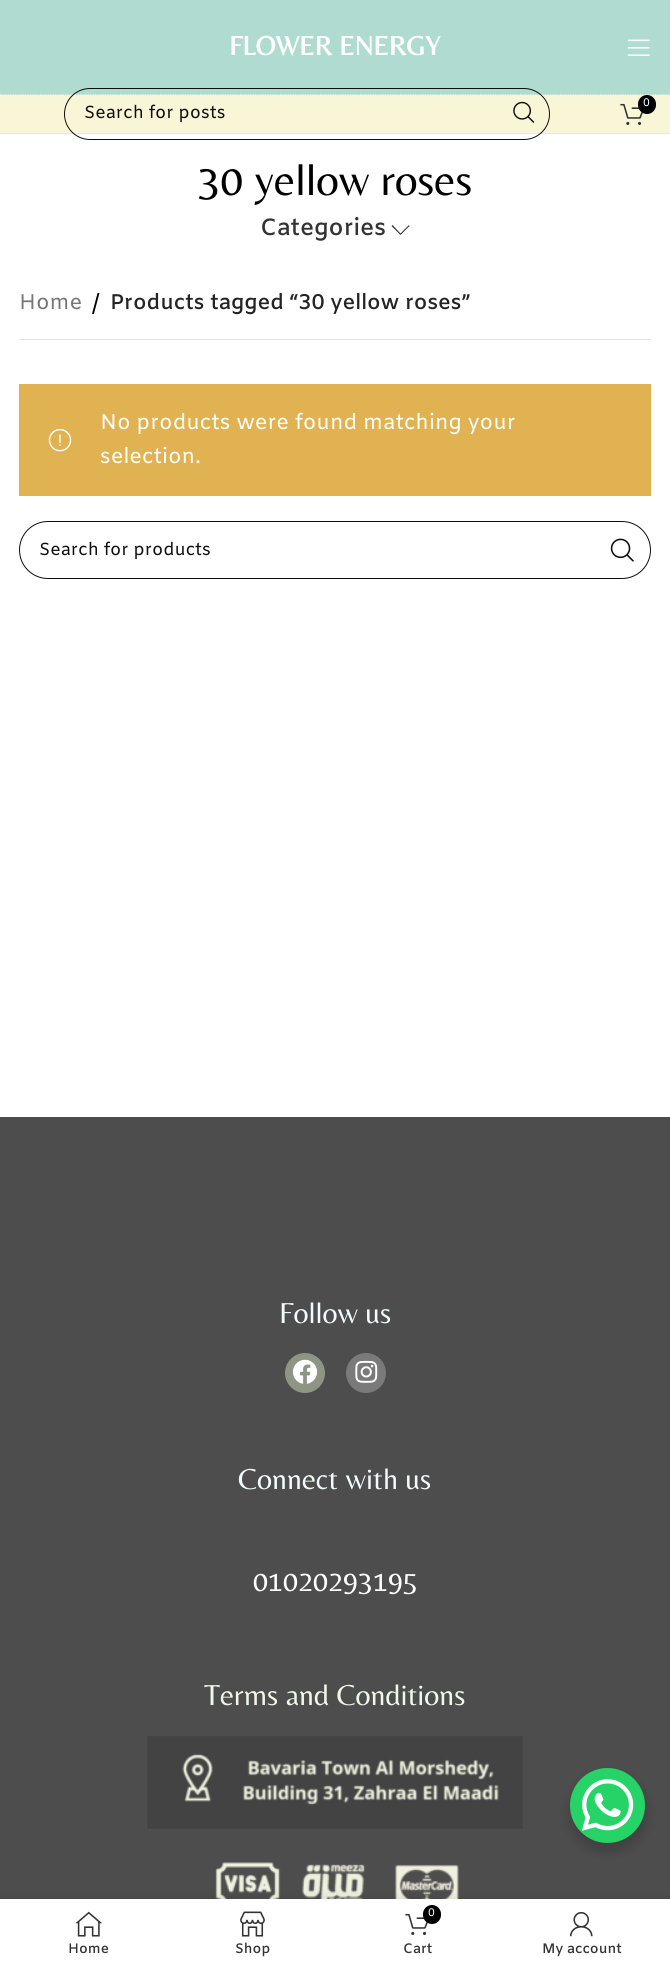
import math
import cairo

surface = cairo.ImageSurface(cairo.FORMAT_RGB24, 670, 1967)
ctx = cairo.Context(surface)
options = cairo.FontOptions()
options.set_hint_metrics(cairo.HINT_METRICS_OFF)
options.set_hint_style(cairo.HINT_STYLE_NONE)
ctx.set_font_options(options)
ctx.set_miter_limit(4)


def set_color(code):
    ctx.set_source_rgb(*(v / 255 for v in bytes.fromhex(code[-6:])))


def draw_text(x, y, s, family, size, color, bold=False, italic=False):
    ctx.select_font_face(family, cairo.FONT_SLANT_ITALIC if italic else cairo.FONT_SLANT_NORMAL, cairo.FONT_WEIGHT_BOLD if bold else cairo.FONT_WEIGHT_NORMAL)
    ctx.set_font_size(size)
    set_color(color)
    ctx.move_to(x, y)
    ctx.show_text(s)


def fill_rect(x, y, w, h, color):
    set_color(color)
    ctx.rectangle(x, y, w, h)
    ctx.fill()


def rounded_rect(x, y, w, h, r):
    ctx.new_sub_path()
    for i, (u, v) in enumerate([(x + w - r, y + h - r), (x + r, y + h - r), (x + r, y + r), (x + w - r, y + r)]):
        ctx.arc(u, v, r, i * math.pi / 2, (i + 1) * math.pi / 2)
    ctx.close_path()


def draw_shadow(x, y, w, h, r, blur, alpha):
    ctx.push_group_with_content(cairo.CONTENT_ALPHA)
    ctx.set_operator(cairo.OPERATOR_SOURCE)
    for i in range(15, -16, -2):
        e = blur * i / 6
        if min(w, h) + 2 * e > 0:
            ctx.set_source_rgba(0, 0, 0, alpha * math.erfc((i - 1) / 8.5) / 2)
            rounded_rect(x - e, y - e, w + 2 * e, h + 2 * e, max(0, min(r + e + blur * .6, min(w, h) / 2 + e)))
            ctx.fill()
    ctx.mask(ctx.pop_group())


def draw_image(path, x, y, w, h):
    ctx.save()
    ctx.set_source_surface(cairo.ImageSurface.create_from_png(path), x, y)
    ctx.rectangle(x, y, w, h)
    ctx.fill()
    ctx.restore()


set_color("#ffffff")
ctx.paint()
fill_rect(0, 0, 670, 95, "#afdbd0")
ctx.new_path()
ctx.move_to(0, 94.5)
ctx.line_to(670, 94.5)
set_color("#e8e8e8")
ctx.set_line_width(1.2)
ctx.set_dash([1.25, 1.25])
ctx.stroke()
draw_text(229, 55, "FLOWER ENERGY", "Belleza", 27.5, "#ffffff", bold=True)
draw_image("assets/img1.png", 627, 39, 23, 17)
fill_rect(0, 95, 670, 38, "#f9f6d8")
fill_rect(0, 133, 670, 1, "#e8e8e8")
draw_image("assets/img2.png", 620, 103, 23, 22)
set_color("#000000")
rounded_rect(638, 95, 18, 19, 9)
ctx.fill()
draw_text(643, 106, "0", "Amiko", 11, "#ffffff")
rounded_rect(64.5, 88.5, 485, 51, 25.5)
set_color("#0f0d0d")
ctx.set_line_width(1)
ctx.set_dash([])
ctx.stroke()
draw_text(84, 118, "Search for posts", "Amiko", 17.5, "#0f0e0e")
draw_image("assets/img3.png", 513, 101, 22, 22)
draw_text(198, 195, "30 yellow roses", "Belleza", 45, "#000000")
draw_text(260, 235, "Categories", "Amiko SemiBold", 23.5, "#333333")
ctx.new_path()
ctx.move_to(409, 225)
ctx.line_to(400.5, 233.5)
ctx.line_to(392.5, 225)
ctx.line_to(391.5, 226)
ctx.line_to(400.5, 235)
ctx.line_to(409.5, 226)
ctx.close_path()
ctx.fill()
fill_rect(19, 339, 632, 1, "#e4e4e4")
draw_text(19, 309, "Home", "Amiko", 21.25, "#767676")
draw_text(92, 309, "/", "Amiko", 21.25, "#000000")
draw_text(110, 309, "Products tagged “30 yellow roses”", "Amiko SemiBold", 21.25, "#242424")
fill_rect(19, 384, 632, 112, "#e0b252")
draw_text(100, 429, "No products were found matching your", "Amiko", 21.25, "#ffffff")
draw_image("assets/img4.png", 48, 428, 24, 24)
draw_text(100, 463, "selection.", "Amiko", 21.25, "#ffffff")
rounded_rect(19.5, 521.5, 631, 57, 28.5)
set_color("#0f0d0d")
ctx.stroke()
draw_text(39, 555, "Search for products", "Amiko", 17.5, "#0f0e0e")
draw_image("assets/img5.png", 610, 538, 24, 24)
fill_rect(0, 1117, 670, 782, "#4d4d4d")
draw_text(279, 1323, "Follow us", "Belleza", 30, "#f2fafb")
set_color("#8f9585")
ctx.new_path()
ctx.arc(305, 1373, 20, 0, 2 * math.pi)
ctx.fill()
draw_image("assets/img6.png", 292, 1359, 26, 25)
set_color("#7a7a7a")
ctx.arc(366, 1373, 20, 0, 2 * math.pi)
ctx.fill()
draw_image("assets/img7.png", 355, 1360, 23, 23)
draw_text(238, 1489, "Connect with us", "Belleza", 30, "#f2fafb")
draw_text(253, 1591, "01020293195", "Belleza", 30, "#ffffff")
draw_text(204, 1705, "Terms and Conditions", "Belleza", 30, "#f1f7eb")
draw_image("assets/img8.png", 147, 1736, 376, 93)
draw_image("assets/img9.png", 215, 1862, 244, 37)
set_color("#000000")
draw_shadow(568, 1773, 80, 80, 40, 5, 0.15)
set_color("#25d366")
ctx.arc(607.5, 1805.5, 37.5, 0, 2 * math.pi)
ctx.fill()
draw_image("assets/img10.png", 582, 1779, 52, 52)
set_color("#000000")
draw_shadow(0, 1899, 670, 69, 0, 5.5, 0.12)
fill_rect(0, 1899, 670, 68, "#ffffff")
draw_image("assets/img11.png", 75, 1911, 27, 26)
draw_text(68, 1953, "Home", "Amiko SemiBold", 13.75, "#333333")
draw_image("assets/img12.png", 240, 1911, 25, 26)
draw_text(235, 1953, "Shop", "Amiko SemiBold", 13.75, "#333333")
draw_image("assets/img13.png", 405, 1913, 23, 22)
set_color("#000000")
rounded_rect(423, 1905, 18, 19, 9)
ctx.fill()
draw_text(428, 1916, "0", "Amiko", 11, "#ffffff")
draw_text(403, 1953, "Cart", "Amiko SemiBold", 13.75, "#333333")
draw_image("assets/img14.png", 569, 1912, 24, 25)
draw_text(542, 1953, "My account", "Amiko SemiBold", 13.75, "#333333")
surface.write_to_png("output.png")
